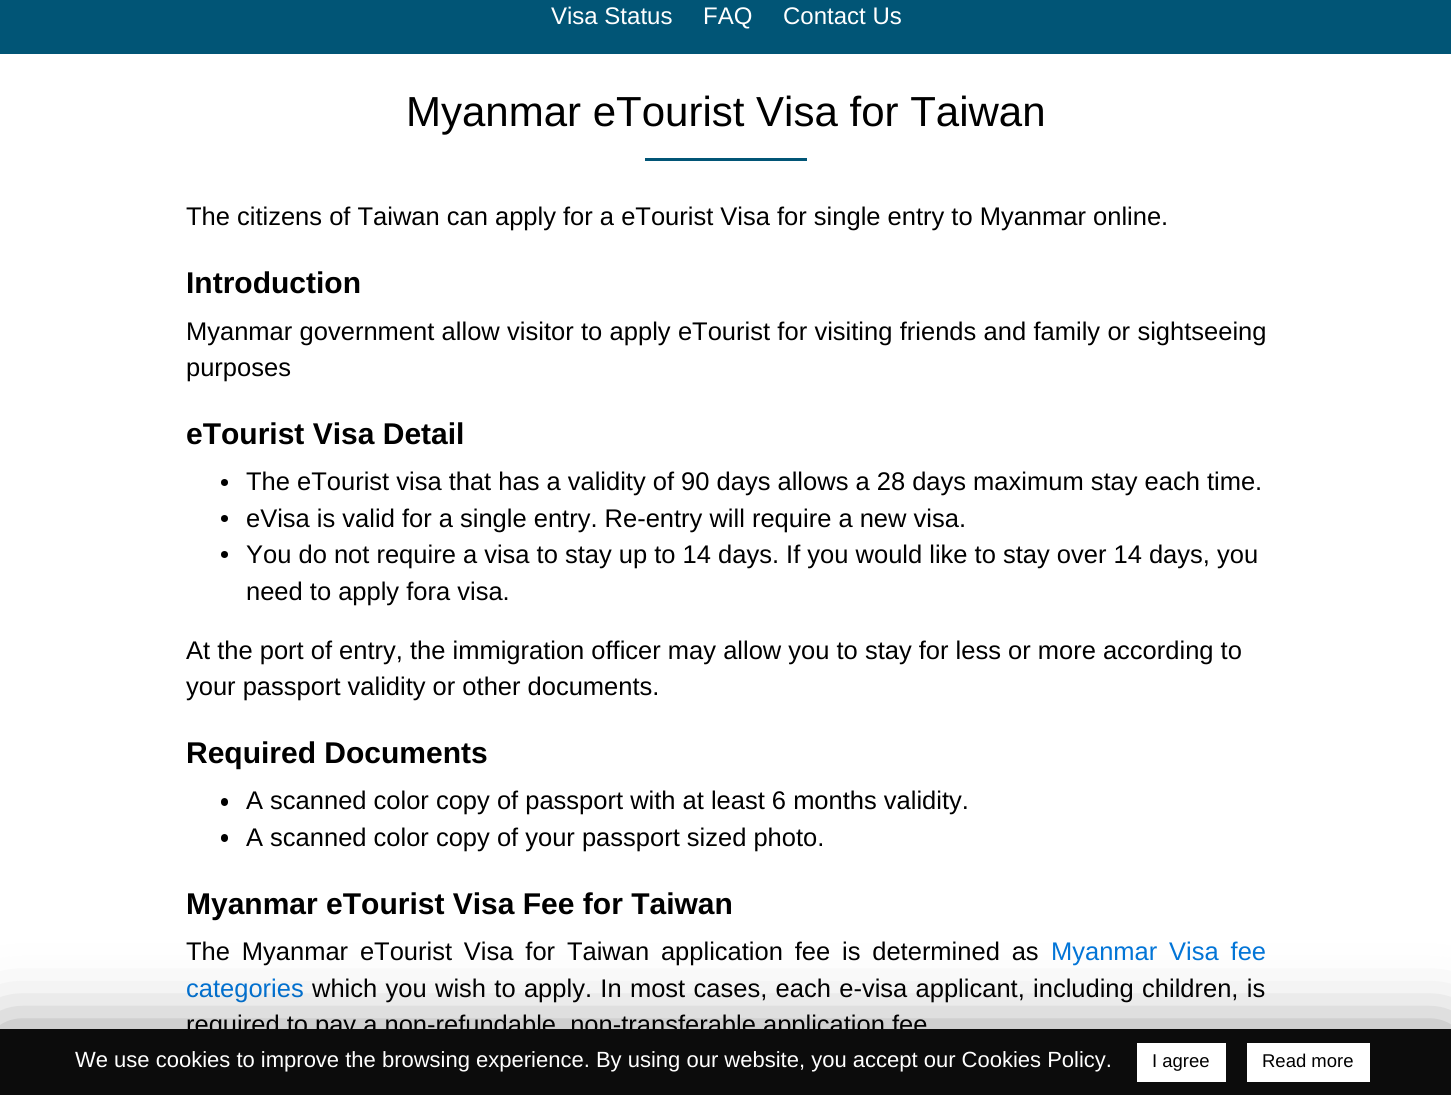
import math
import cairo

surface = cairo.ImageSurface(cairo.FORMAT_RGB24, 1451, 1095)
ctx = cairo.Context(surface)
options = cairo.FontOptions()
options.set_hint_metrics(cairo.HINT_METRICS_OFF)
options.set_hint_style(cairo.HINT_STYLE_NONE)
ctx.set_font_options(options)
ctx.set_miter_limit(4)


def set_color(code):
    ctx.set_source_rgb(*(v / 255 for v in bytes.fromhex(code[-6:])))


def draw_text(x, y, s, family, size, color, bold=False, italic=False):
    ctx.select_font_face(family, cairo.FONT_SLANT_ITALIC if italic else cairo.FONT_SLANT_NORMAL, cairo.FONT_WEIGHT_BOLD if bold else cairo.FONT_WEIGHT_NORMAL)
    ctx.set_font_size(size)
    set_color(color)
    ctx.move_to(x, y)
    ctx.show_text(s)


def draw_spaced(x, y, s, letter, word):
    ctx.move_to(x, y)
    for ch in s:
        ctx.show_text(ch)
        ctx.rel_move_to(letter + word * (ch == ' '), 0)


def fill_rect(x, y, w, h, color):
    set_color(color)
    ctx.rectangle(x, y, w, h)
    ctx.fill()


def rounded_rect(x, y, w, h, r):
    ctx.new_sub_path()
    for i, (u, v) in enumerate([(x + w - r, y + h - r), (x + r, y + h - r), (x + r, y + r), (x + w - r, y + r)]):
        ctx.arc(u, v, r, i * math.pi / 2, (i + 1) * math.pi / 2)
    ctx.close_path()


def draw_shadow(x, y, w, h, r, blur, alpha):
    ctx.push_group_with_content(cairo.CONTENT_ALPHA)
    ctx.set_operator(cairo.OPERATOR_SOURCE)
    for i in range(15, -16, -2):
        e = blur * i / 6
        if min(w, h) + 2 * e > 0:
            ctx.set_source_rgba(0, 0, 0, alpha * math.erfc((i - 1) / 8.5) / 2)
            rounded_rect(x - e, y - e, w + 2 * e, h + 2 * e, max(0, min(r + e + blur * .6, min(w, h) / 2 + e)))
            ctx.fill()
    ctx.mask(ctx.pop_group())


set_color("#ffffff")
ctx.paint()
fill_rect(0, 0, 1451, 54, "#015576")
draw_text(551, 24, "Visa Status", "Liberation Sans", 24, "#ffffff")
draw_text(703, 24, "FAQ", "Liberation Sans", 24, "#ffffff")
draw_text(783, 24, "Contact Us", "Liberation Sans", 24, "#ffffff")
draw_text(406, 126, "Myanmar eTourist Visa for Taiwan", "Liberation Sans", 42, "#000000")
fill_rect(645, 158, 162, 3, "#015576")
draw_text(186, 225, "The citizens of Taiwan can apply for a eTourist Visa for single entry to Myanmar online.", "Liberation Sans", 25.5, "#000000")
draw_text(186, 293, "Introduction", "Liberation Sans", 30, "#000000", bold=True)
ctx.select_font_face("Liberation Sans")
ctx.set_font_size(25.5)
draw_spaced(186, 340, "Myanmar government allow visitor to apply eTourist for visiting friends and family or sightseeing", 0, 0.25)
draw_text(186, 376, "purposes", "Liberation Sans", 25.5, "#000000")
draw_text(186, 444, "eTourist Visa Detail", "Liberation Sans", 30, "#000000", bold=True)
ctx.new_path()
ctx.arc(224.5, 482.5, 3.5, 0, 2 * math.pi)
ctx.fill()
draw_text(246, 490, "The eTourist visa that has a validity of 90 days allows a 28 days maximum stay each time.", "Liberation Sans", 25.5, "#000000")
ctx.new_path()
ctx.arc(224.5, 518.5, 3.5, 0, 2 * math.pi)
ctx.fill()
draw_text(246, 527, "eVisa is valid for a single entry. Re-entry will require a new visa.", "Liberation Sans", 25.5, "#000000")
ctx.new_path()
ctx.arc(224.5, 554.5, 3.5, 0, 2 * math.pi)
ctx.fill()
draw_text(246, 563, "You do not require a visa to stay up to 14 days. If you would like to stay over 14 days, you", "Liberation Sans", 25.5, "#000000")
draw_text(246, 600, "need to apply fora visa.", "Liberation Sans", 25.5, "#000000")
draw_text(186, 659, "At the port of entry, the immigration officer may allow you to stay for less or more according to", "Liberation Sans", 25.5, "#000000")
draw_text(186, 695, "your passport validity or other documents.", "Liberation Sans", 25.5, "#000000")
draw_text(186, 763, "Required Documents", "Liberation Sans", 30, "#000000", bold=True)
rounded_rect(221, 798, 7, 8, 3.5)
ctx.fill()
draw_text(246, 809, "A scanned color copy of passport with at least 6 months validity.", "Liberation Sans", 25.5, "#000000")
rounded_rect(221, 834, 7, 8, 3.5)
ctx.fill()
draw_text(246, 846, "A scanned color copy of your passport sized photo.", "Liberation Sans", 25.5, "#000000")
draw_text(186, 914, "Myanmar eTourist Visa Fee for Taiwan", "Liberation Sans", 30, "#000000", bold=True)
ctx.select_font_face("Liberation Sans")
ctx.set_font_size(25.5)
draw_spaced(186, 960, "The Myanmar eTourist Visa for Taiwan application fee is determined as", 0, 4.75)
set_color("#0275d8")
draw_spaced(1051, 960, "Myanmar Visa fee", 0, 4.75)
draw_text(186, 997, "categories", "Liberation Sans", 25.5, "#0275d8")
set_color("#000000")
draw_spaced(312, 997, "which you wish to apply. In most cases, each e-visa applicant, including children, is", 0, 1.25)
draw_text(186, 1033, "required to pay a non-refundable, non-transferable application fee", "Liberation Sans", 25.5, "#000000")
set_color("#000000")
draw_shadow(0, 1037, 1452, 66, 0, 37.5, 0.5)
fill_rect(0, 1029, 1451, 66, "#0c0c0c")
draw_text(75, 1067, "We use cookies to improve the browsing experience. By using our website, you accept our Cookies Policy.", "Liberation Sans", 22, "#ffffff")
fill_rect(1137, 1043, 89, 39, "#ffffff")
draw_text(1152, 1067, "I agree", "Liberation Sans", 18.5, "#000000")
fill_rect(1247, 1043, 123, 39, "#ffffff")
draw_text(1262, 1067, "Read more", "Liberation Sans", 18.5, "#000000")
surface.write_to_png("output.png")
